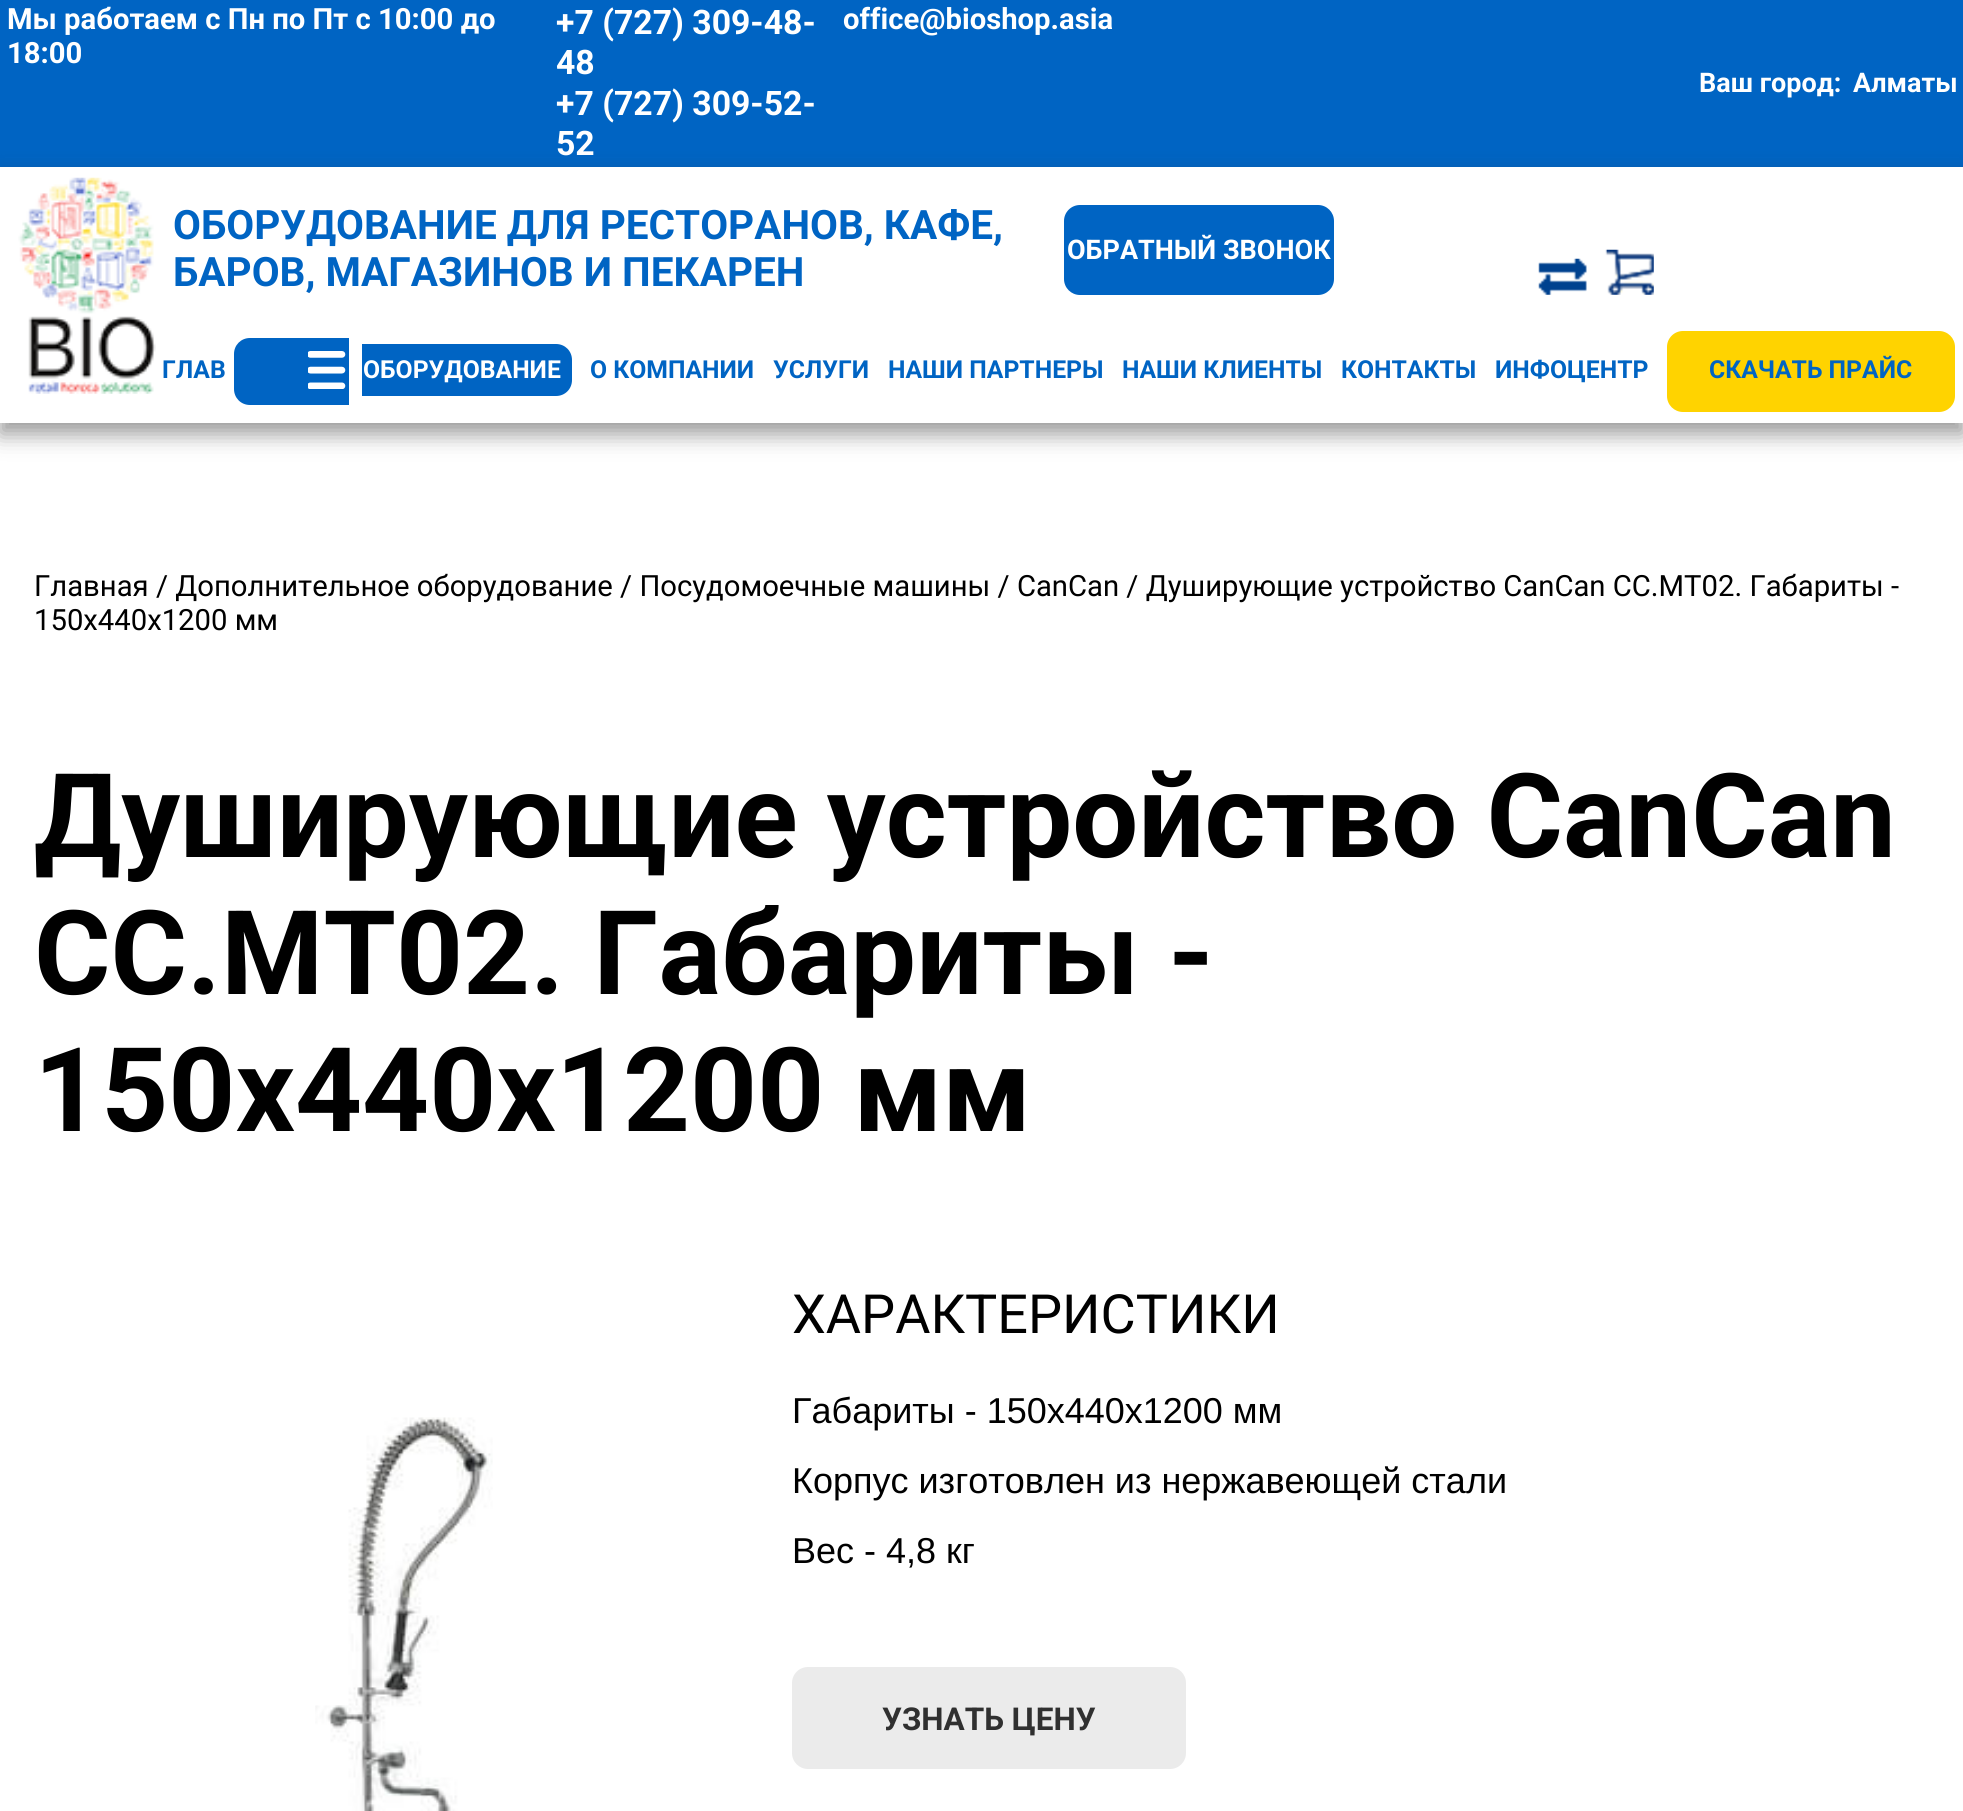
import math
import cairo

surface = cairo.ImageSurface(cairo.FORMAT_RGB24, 1963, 1811)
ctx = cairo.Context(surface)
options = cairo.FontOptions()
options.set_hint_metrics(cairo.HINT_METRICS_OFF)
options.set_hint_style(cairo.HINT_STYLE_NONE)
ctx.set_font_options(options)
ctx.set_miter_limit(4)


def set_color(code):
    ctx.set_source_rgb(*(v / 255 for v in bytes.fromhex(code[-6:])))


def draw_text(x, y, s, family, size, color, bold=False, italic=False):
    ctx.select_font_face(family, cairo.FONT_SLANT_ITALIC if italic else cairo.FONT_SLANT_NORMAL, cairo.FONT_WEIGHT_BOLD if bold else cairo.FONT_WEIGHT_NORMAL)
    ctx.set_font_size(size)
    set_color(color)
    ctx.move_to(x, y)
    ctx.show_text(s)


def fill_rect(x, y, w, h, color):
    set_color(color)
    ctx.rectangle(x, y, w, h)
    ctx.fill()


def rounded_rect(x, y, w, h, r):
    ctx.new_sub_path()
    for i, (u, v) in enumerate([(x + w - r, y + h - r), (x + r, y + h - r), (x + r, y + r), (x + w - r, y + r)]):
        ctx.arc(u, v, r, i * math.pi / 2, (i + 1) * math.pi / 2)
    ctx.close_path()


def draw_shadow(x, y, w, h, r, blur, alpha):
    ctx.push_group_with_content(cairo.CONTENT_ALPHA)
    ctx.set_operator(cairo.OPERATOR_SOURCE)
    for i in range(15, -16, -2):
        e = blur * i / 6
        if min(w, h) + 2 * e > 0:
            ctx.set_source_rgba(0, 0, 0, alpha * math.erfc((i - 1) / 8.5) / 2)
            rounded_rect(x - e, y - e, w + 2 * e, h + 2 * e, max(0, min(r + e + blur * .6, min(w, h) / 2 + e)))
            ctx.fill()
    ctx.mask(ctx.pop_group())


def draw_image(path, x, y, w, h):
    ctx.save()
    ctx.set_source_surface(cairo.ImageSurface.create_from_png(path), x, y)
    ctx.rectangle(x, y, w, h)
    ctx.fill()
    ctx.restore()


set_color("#ffffff")
ctx.paint()
fill_rect(0, 0, 1963, 167, "#0064c3")
draw_text(7, 29, "Мы работаем с Пн по Пт с 10:00 до", "Roboto", 29.25, "#ffffff", bold=True)
draw_text(7, 63, "18:00", "Roboto", 29.25, "#ffffff", bold=True)
draw_text(556, 34, "+7 (727) 309-48-", "Roboto", 33.75, "#ffffff", bold=True)
draw_text(556, 74, "48", "Roboto", 33.75, "#ffffff", bold=True)
draw_text(556, 115, "+7 (727) 309-52-", "Roboto", 33.75, "#ffffff", bold=True)
draw_text(556, 155, "52", "Roboto", 33.75, "#ffffff", bold=True)
draw_text(843, 29, "office@bioshop.asia", "Roboto", 29.25, "#ffffff", bold=True)
draw_text(1699, 92, "Ваш город:", "Roboto", 27, "#ffffff", bold=True)
draw_text(1853, 92, "Алматы", "Roboto", 27, "#ffffff", bold=True)
ctx.save()
ctx.set_fill_rule(cairo.FILL_RULE_EVEN_ODD)
ctx.new_path()
ctx.move_to(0, 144)
ctx.line_to(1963, 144)
ctx.line_to(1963, 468)
ctx.line_to(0, 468)
ctx.close_path()
ctx.move_to(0, 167)
ctx.line_to(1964, 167)
ctx.line_to(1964, 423)
ctx.line_to(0, 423)
ctx.close_path()
ctx.clip()
set_color("#323232")
draw_shadow(0, 178, 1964, 256, 0, 11, 0.5)
ctx.restore()
draw_image("assets/img1.png", 18, 177, 138, 217)
draw_text(173, 239, "ОБОРУДОВАНИЕ ДЛЯ РЕСТОРАНОВ, КАФЕ,", "Roboto", 40.5, "#0064c3", bold=True)
draw_text(173, 286, "БАРОВ, МАГАЗИНОВ И ПЕКАРЕН", "Roboto", 40.5, "#0064c3", bold=True)
rounded_rect(1064, 205, 270, 90, 16)
ctx.fill()
draw_text(1067, 259, "ОБРАТНЫЙ ЗВОНОК", "Roboto", 27, "#ffffff", bold=True)
draw_image("assets/img2.png", 1538, 258, 49, 37)
draw_image("assets/img3.png", 1605, 249, 49, 46)
draw_text(162, 378, "ГЛАВ", "Roboto", 24.75, "#0064c3", bold=True)
ctx.new_path()
ctx.move_to(250, 338)
ctx.line_to(349, 338)
ctx.line_to(349, 405)
ctx.line_to(250, 405)
ctx.curve_to(241, 405, 234, 398, 234, 389)
ctx.line_to(234, 354)
ctx.curve_to(234, 345, 241, 338, 250, 338)
ctx.close_path()
ctx.fill()
ctx.new_path()
ctx.move_to(362, 344)
ctx.line_to(556, 344)
ctx.curve_to(565, 344, 572, 351, 572, 360)
ctx.line_to(572, 380)
ctx.curve_to(572, 389, 565, 396, 556, 396)
ctx.line_to(362, 396)
ctx.close_path()
ctx.fill()
draw_image("assets/img4.png", 308, 351, 38, 38)
draw_text(363, 378, "ОБОРУДОВАНИЕ", "Roboto", 24.75, "#ffffff", bold=True)
draw_text(590, 378, "О КОМПАНИИ", "Roboto", 24.75, "#0064c3", bold=True)
draw_text(773, 378, "УСЛУГИ", "Roboto", 24.75, "#0064c3", bold=True)
draw_text(888, 378, "НАШИ ПАРТНЕРЫ", "Roboto", 24.75, "#0064c3", bold=True)
draw_text(1122, 378, "НАШИ КЛИЕНТЫ", "Roboto", 24.75, "#0064c3", bold=True)
draw_text(1341, 378, "КОНТАКТЫ", "Roboto", 24.75, "#0064c3", bold=True)
draw_text(1495, 378, "ИНФОЦЕНТР", "Roboto", 24.75, "#0064c3", bold=True)
set_color("#ffd300")
rounded_rect(1667, 331, 288, 81, 16)
ctx.fill()
draw_text(1709, 378, "СКАЧАТЬ ПРАЙС", "Roboto", 24.75, "#0064c3", bold=True)
draw_text(34, 596, "Главная / Дополнительное оборудование / Посудомоечные машины / CanCan / Душирующие устройство CanCan CC.MT02. Габариты -", "Roboto", 29.25, "#000000")
draw_text(34, 630, "150х440х1200 мм", "Roboto", 29.25, "#000000")
draw_text(34, 857, "Душирующие устройство CanCan", "Roboto", 117, "#000000", bold=True)
draw_text(34, 994, "CC.MT02. Габариты -", "Roboto", 117, "#000000", bold=True)
draw_text(34, 1131, "150х440х1200 мм", "Roboto", 117, "#000000", bold=True)
draw_image("assets/img5.png", 315, 1417, 178, 394)
draw_text(792, 1333, "ХАРАКТЕРИСТИКИ", "Roboto", 54, "#000000")
draw_text(792, 1423, "Габариты - 150х440х1200 мм", "Liberation Sans", 36, "#000000")
draw_text(792, 1493, "Корпус изготовлен из нержавеющей стали", "Liberation Sans", 36, "#000000")
draw_text(792, 1563, "Вес - 4,8 кг", "Liberation Sans", 36, "#000000")
set_color("#ebebeb")
rounded_rect(792, 1667, 394, 102, 16)
ctx.fill()
draw_text(882, 1730, "УЗНАТЬ ЦЕНУ", "Roboto", 31.5, "#303030", bold=True)
surface.write_to_png("output.png")
